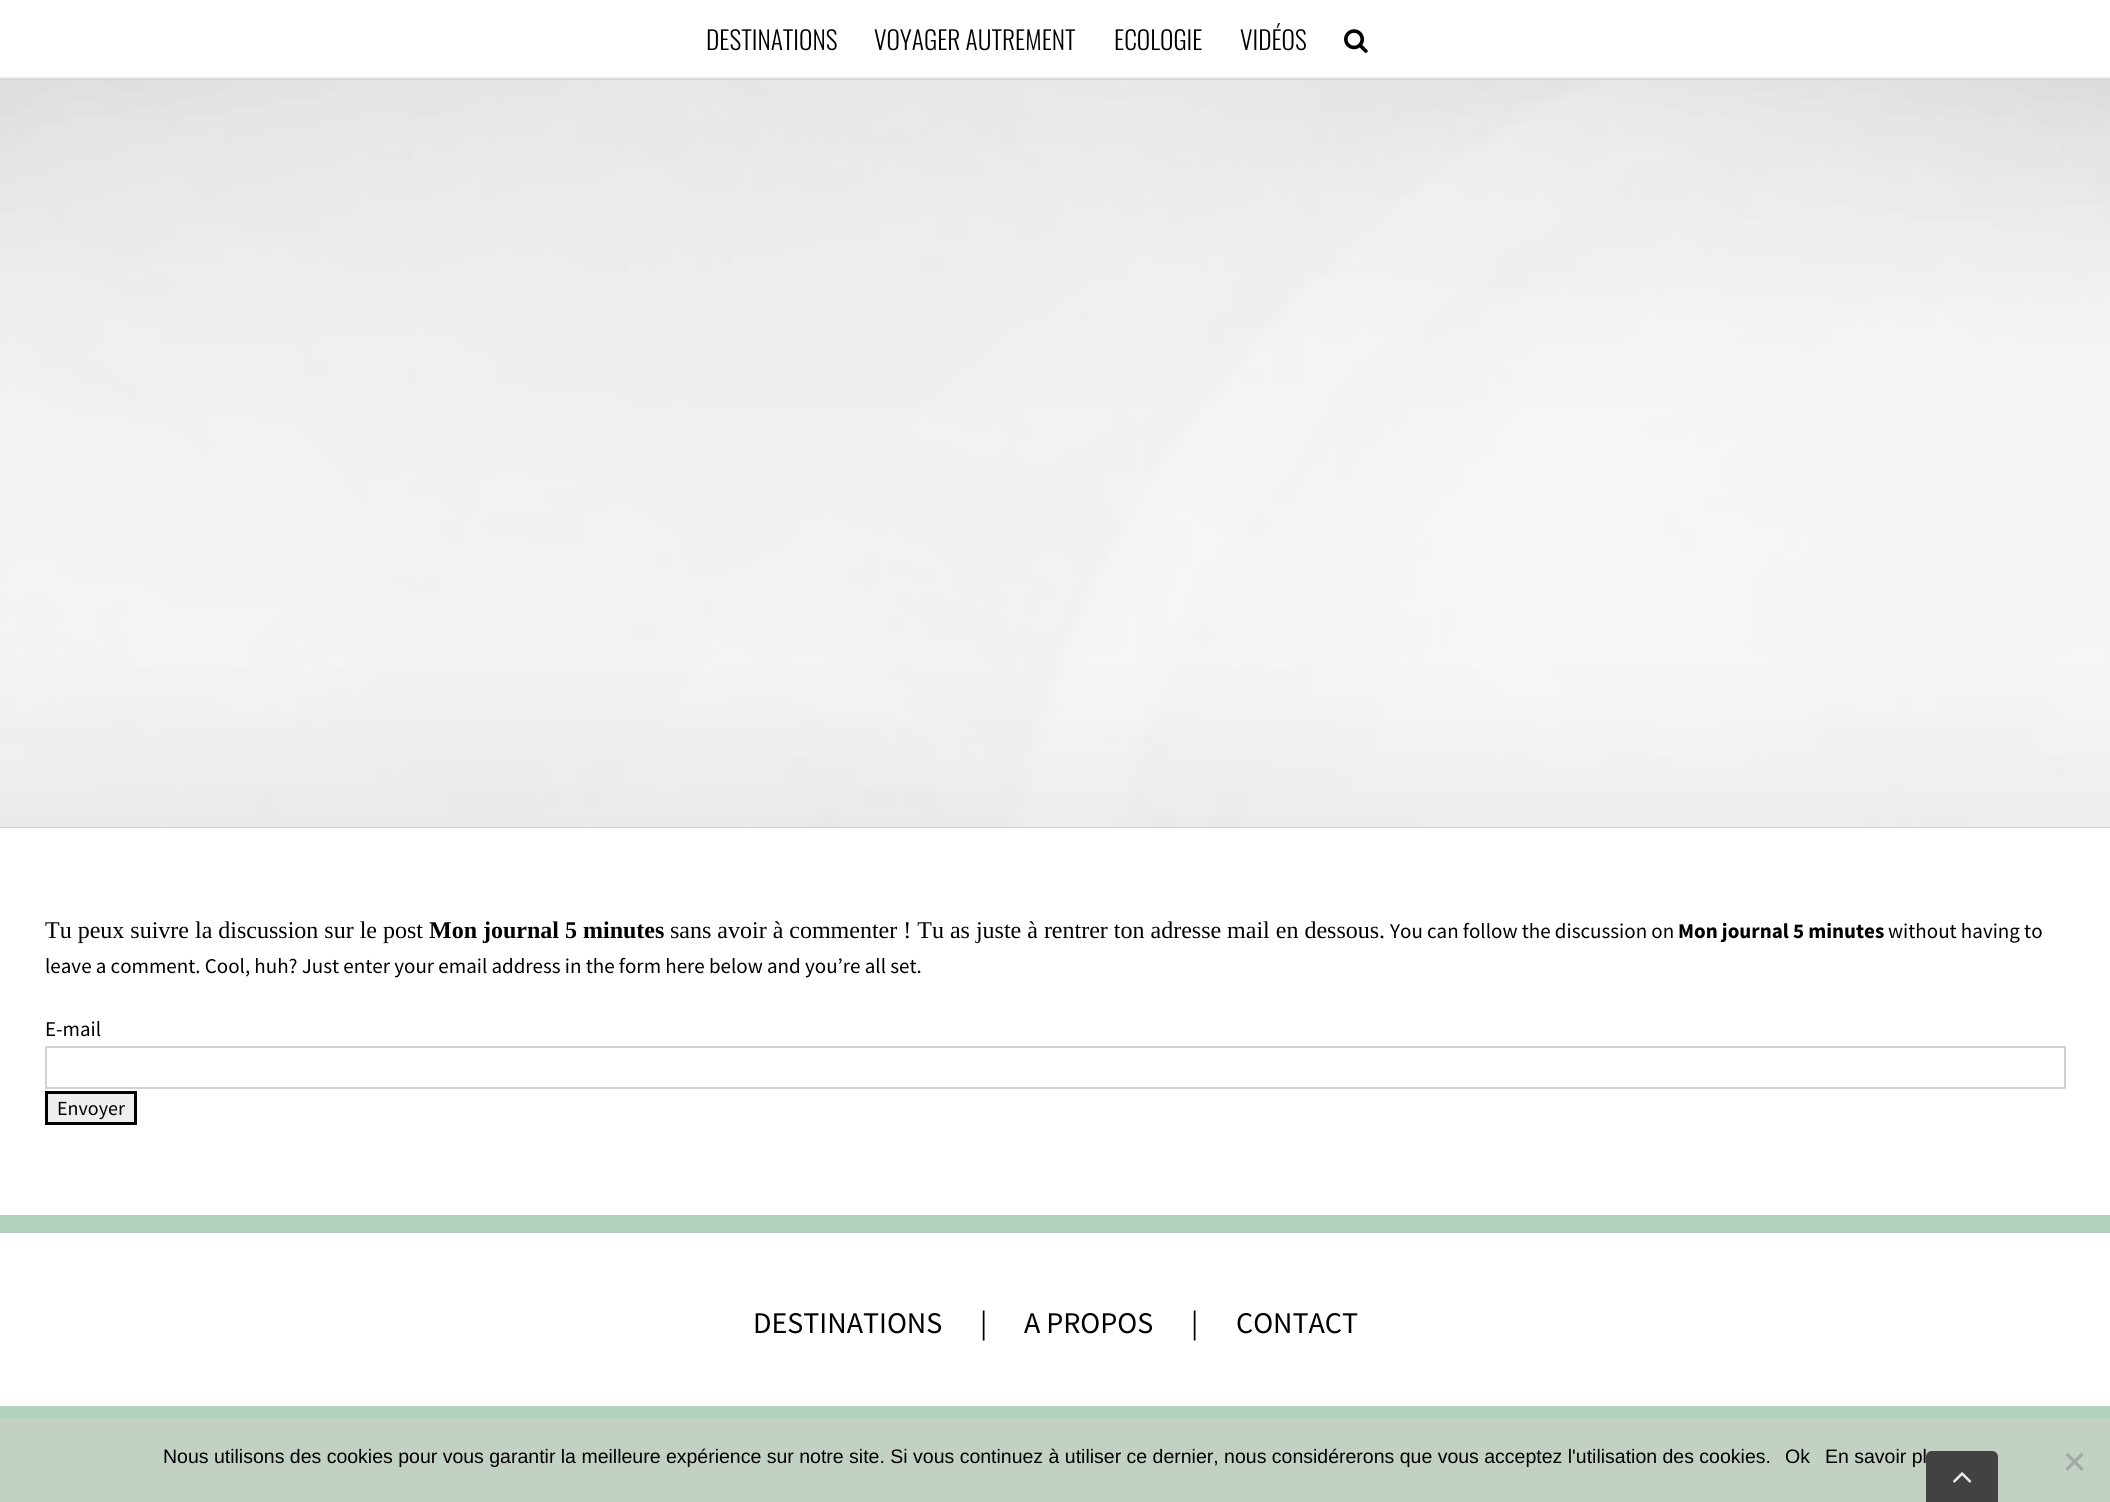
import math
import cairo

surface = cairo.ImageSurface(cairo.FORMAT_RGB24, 2110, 1502)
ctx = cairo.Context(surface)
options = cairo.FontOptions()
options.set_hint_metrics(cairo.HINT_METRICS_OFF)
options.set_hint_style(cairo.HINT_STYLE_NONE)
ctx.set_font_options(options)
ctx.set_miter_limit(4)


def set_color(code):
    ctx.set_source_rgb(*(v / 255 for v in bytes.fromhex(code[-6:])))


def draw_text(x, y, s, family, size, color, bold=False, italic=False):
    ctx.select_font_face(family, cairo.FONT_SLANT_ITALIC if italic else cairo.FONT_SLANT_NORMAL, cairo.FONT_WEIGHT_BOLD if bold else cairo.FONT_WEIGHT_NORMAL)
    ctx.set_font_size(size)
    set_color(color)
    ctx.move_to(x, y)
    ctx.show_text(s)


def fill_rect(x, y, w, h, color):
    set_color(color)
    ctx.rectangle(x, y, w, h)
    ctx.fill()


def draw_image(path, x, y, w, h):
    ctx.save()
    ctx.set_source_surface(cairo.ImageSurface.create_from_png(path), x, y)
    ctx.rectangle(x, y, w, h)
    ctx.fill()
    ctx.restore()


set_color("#ffffff")
ctx.paint()
fill_rect(0, 77, 2110, 2, "#e5e5e5")
draw_text(706, 50, "DESTINATIONS", "Oswald Light", 25.5, "#000000")
draw_text(874, 50, "VOYAGER AUTREMENT", "Oswald Light", 25.5, "#000000")
draw_text(1114, 50, "ECOLOGIE", "Oswald Light", 25.5, "#000000")
draw_text(1240, 50, "VIDÉOS", "Oswald Light", 25.5, "#000000")
draw_image("assets/img1.png", 1344, 29, 24, 24)
fill_rect(0, 80, 2110, 747, "#f6f6f6")
draw_image("assets/img2.png", 0, 80, 2110, 747)
fill_rect(0, 79, 2110, 1, "#d2d3d4")
fill_rect(0, 827, 2110, 1, "#d2d3d4")
draw_text(45, 938, "Tu peux suivre la discussion sur le post", "Liberation Serif", 24, "#000000")
draw_text(429, 938, "Mon journal 5 minutes", "Liberation Serif", 24, "#000000", bold=True)
draw_text(670, 938, "sans avoir à commenter ! Tu as juste à rentrer ton adresse mail en dessous.", "Liberation Serif", 24, "#000000")
draw_text(1390, 938, "You can follow the discussion on", "Source Sans Pro", 21, "#000000")
draw_text(1678, 938, "Mon journal 5 minutes", "Source Sans Pro", 21, "#000000", bold=True)
draw_text(1888, 938, "without having to", "Source Sans Pro", 21, "#000000")
draw_text(45, 973, "leave a comment. Cool, huh? Just enter your email address in the form here below and you’re all set.", "Source Sans Pro", 21, "#000000")
draw_text(45, 1036, "E-mail", "Source Sans Pro", 21, "#000000")
ctx.rectangle(46, 1047, 2019, 41)
set_color("#d2d2d2")
ctx.stroke()
set_color("#efefef")
ctx.rectangle(46.5, 1092.5, 89, 31)
ctx.fill_preserve()
set_color("#000000")
ctx.set_line_width(3)
ctx.stroke()
draw_text(57, 1115, "Envoyer", "Source Sans Pro", 20, "#000000")
fill_rect(0, 1215, 2110, 18, "#b1d2be")
draw_text(753, 1333, "DESTINATIONS", "Source Sans Pro", 30, "#000000")
draw_text(980, 1333, "|", "Source Sans Pro", 30, "#000000")
draw_text(1024, 1333, "A PROPOS", "Source Sans Pro", 30, "#000000")
draw_text(1191, 1333, "|", "Source Sans Pro", 30, "#000000")
draw_text(1236, 1333, "CONTACT", "Source Sans Pro", 30, "#000000")
fill_rect(0, 1406, 2110, 13, "#b1d2be")
fill_rect(0, 1419, 2110, 83, "#c2d1c3")
draw_text(163, 1463, "Nous utilisons des cookies pour vous garantir la meilleure expérience sur notre site. Si vous continuez à utiliser ce dernier, nous considérerons que vous acceptez l'utilisation des cookies.", "Liberation Sans", 19.5, "#000000")
draw_text(1785, 1463, "Ok", "Liberation Sans", 19.5, "#000000")
draw_text(1825, 1463, "En savoir pl", "Liberation Sans", 19.5, "#000000")
set_color("#a1a9a2")
ctx.new_path()
ctx.move_to(2081.5, 1452.5)
ctx.line_to(2083.5, 1455)
ctx.line_to(2067.5, 1471)
ctx.line_to(2065.5, 1468.5)
ctx.close_path()
ctx.fill()
ctx.new_path()
ctx.move_to(2065.5, 1455)
ctx.line_to(2067.5, 1452.5)
ctx.line_to(2083.5, 1468.5)
ctx.line_to(2081.5, 1471)
ctx.close_path()
ctx.fill()
ctx.set_source_rgba(0.2, 0.2, 0.2, 0.9)
ctx.new_path()
ctx.move_to(1932, 1451)
ctx.line_to(1992, 1451)
ctx.curve_to(1995.5, 1451, 1998, 1453.5, 1998, 1457)
ctx.line_to(1998, 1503)
ctx.line_to(1926, 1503)
ctx.line_to(1926, 1457)
ctx.curve_to(1926, 1453.5, 1928.5, 1451, 1932, 1451)
ctx.close_path()
ctx.fill()
draw_image("assets/img3.png", 1953, 1472, 19, 11)
surface.write_to_png("output.png")
